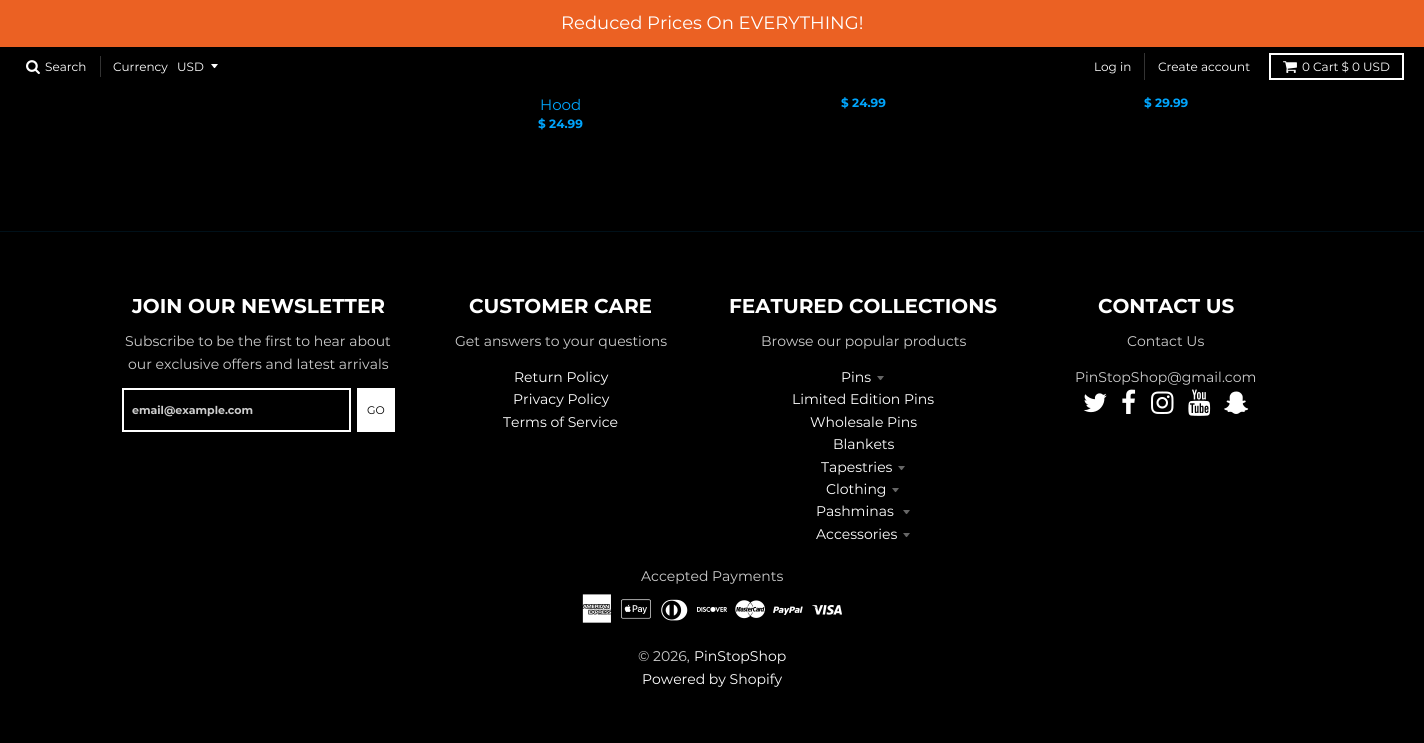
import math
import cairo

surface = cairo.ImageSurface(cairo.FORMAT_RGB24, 1424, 743)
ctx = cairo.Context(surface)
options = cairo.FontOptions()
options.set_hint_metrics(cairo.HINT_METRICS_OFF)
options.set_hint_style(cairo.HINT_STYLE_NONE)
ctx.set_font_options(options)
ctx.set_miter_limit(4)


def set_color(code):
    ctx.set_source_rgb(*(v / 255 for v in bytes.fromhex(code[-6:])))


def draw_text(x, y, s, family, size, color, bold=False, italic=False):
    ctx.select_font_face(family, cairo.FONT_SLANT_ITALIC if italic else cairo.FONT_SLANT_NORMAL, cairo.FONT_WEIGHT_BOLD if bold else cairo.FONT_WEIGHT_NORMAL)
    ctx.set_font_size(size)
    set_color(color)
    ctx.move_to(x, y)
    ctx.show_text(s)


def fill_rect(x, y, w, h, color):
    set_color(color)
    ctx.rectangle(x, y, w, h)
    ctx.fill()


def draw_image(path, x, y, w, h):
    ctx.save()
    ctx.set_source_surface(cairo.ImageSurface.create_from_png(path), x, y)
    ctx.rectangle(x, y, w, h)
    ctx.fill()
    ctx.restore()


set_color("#000000")
ctx.paint()
fill_rect(0, 0, 1424, 47, "#eb6123")
draw_text(561, 29, "Reduced Prices On EVERYTHING!", "Montserrat", 18, "#ffffff")
draw_image("assets/img1.png", 26, 60, 14, 15)
draw_text(45, 71, "Search", "Montserrat", 12, "#ffffff")
fill_rect(100, 56, 1, 21, "#333333")
draw_text(113, 71, "Currency", "Montserrat", 12, "#ffffff")
ctx.new_path()
ctx.move_to(211, 64)
ctx.curve_to(215.5, 69.5, 213.5, 69.5, 218, 64)
ctx.close_path()
ctx.fill()
draw_text(177, 71, "USD", "Montserrat", 12, "#ffffff")
fill_rect(1144, 53, 1, 27, "#333333")
draw_text(1094, 71, "Log in", "Montserrat", 12, "#ffffff")
draw_text(1158, 71, "Create account", "Montserrat", 12, "#ffffff")
ctx.rectangle(1270, 54, 133, 25)
ctx.stroke()
draw_image("assets/img2.png", 1283, 61, 14, 12)
draw_text(1302, 71, "0 Cart $ 0 USD", "Montserrat", 12, "#ffffff")
fill_rect(0, 231, 1424, 1, "#001019")
draw_text(540, 110, "Hood", "Montserrat", 15, "#00a5fd")
draw_text(538, 128, "$ 24.99", "Montserrat", 12, "#00a5fd", bold=True)
draw_text(841, 107, "$ 24.99", "Montserrat", 12, "#00a5fd", bold=True)
draw_text(1144, 107, "$ 29.99", "Montserrat", 12, "#00a5fd", bold=True)
draw_text(132, 313, "JOIN OUR NEWSLETTER", "Montserrat", 20, "#ffffff", bold=True)
draw_text(125, 346, "Subscribe to be the first to hear about", "Montserrat", 14, "#cccccc")
draw_text(128, 369, "our exclusive offers and latest arrivals", "Montserrat", 14, "#cccccc")
ctx.rectangle(123, 389, 227, 42)
set_color("#ffffff")
ctx.stroke()
draw_text(132, 414, "email@example.com", "Montserrat", 11, "#cccccc", bold=True)
fill_rect(357, 388, 38, 44, "#ffffff")
draw_text(367, 414, "GO", "Montserrat", 11, "#000000")
draw_text(469, 313, "CUSTOMER CARE", "Montserrat", 20, "#ffffff", bold=True)
draw_text(455, 346, "Get answers to your questions", "Montserrat", 14, "#cccccc")
draw_text(514, 382, "Return Policy", "Montserrat", 14, "#ffffff")
draw_text(513, 404, "Privacy Policy", "Montserrat", 14, "#ffffff")
draw_text(503, 427, "Terms of Service", "Montserrat", 14, "#ffffff")
draw_text(729, 313, "FEATURED COLLECTIONS", "Montserrat", 20, "#ffffff", bold=True)
draw_text(761, 346, "Browse our popular products", "Montserrat", 14, "#cccccc")
draw_text(841, 382, "Pins", "Montserrat", 14, "#ffffff")
set_color("#666666")
ctx.new_path()
ctx.move_to(877, 376)
ctx.curve_to(881.5, 381.5, 879.5, 381.5, 884, 376)
ctx.close_path()
ctx.fill()
draw_text(792, 404, "Limited Edition Pins", "Montserrat", 14, "#ffffff")
draw_text(810, 427, "Wholesale Pins", "Montserrat", 14, "#ffffff")
draw_text(833, 449, "Blankets", "Montserrat", 14, "#ffffff")
draw_text(821, 472, "Tapestries", "Montserrat", 14, "#ffffff")
set_color("#666666")
ctx.new_path()
ctx.move_to(898, 466)
ctx.curve_to(902.5, 471.5, 900.5, 471.5, 905, 466)
ctx.close_path()
ctx.fill()
draw_text(826, 494, "Clothing", "Montserrat", 14, "#ffffff")
set_color("#666666")
ctx.new_path()
ctx.move_to(892, 488)
ctx.curve_to(896.5, 493.5, 894.5, 493.5, 899, 488)
ctx.close_path()
ctx.fill()
draw_text(816, 516, "Pashminas", "Montserrat", 14, "#ffffff")
set_color("#666666")
ctx.new_path()
ctx.move_to(903, 510)
ctx.curve_to(907.5, 515.5, 905.5, 515.5, 910, 510)
ctx.close_path()
ctx.fill()
draw_text(816, 539, "Accessories", "Montserrat", 14, "#ffffff")
set_color("#666666")
ctx.new_path()
ctx.move_to(903, 533)
ctx.curve_to(907.5, 538.5, 905.5, 538.5, 910, 533)
ctx.close_path()
ctx.fill()
draw_text(1098, 313, "CONTACT US", "Montserrat", 20, "#ffffff", bold=True)
draw_text(1127, 346, "Contact Us", "Montserrat", 14, "#cccccc")
draw_text(1075, 382, "PinStopShop@gmail.com", "Montserrat", 14, "#cccccc")
draw_image("assets/img3.png", 1083, 393, 24, 20)
draw_image("assets/img4.png", 1122, 389, 14, 25)
draw_image("assets/img5.png", 1151, 391, 23, 23)
draw_image("assets/img6.png", 1188, 389, 23, 27)
draw_image("assets/img7.png", 1224, 391, 25, 23)
draw_text(641, 581, "Accepted Payments", "Montserrat", 14, "#cccccc")
draw_image("assets/img8.png", 582, 594, 30, 29)
draw_image("assets/img9.png", 621, 599, 30, 20)
draw_image("assets/img10.png", 661, 599, 27, 22)
draw_image("assets/img11.png", 697, 606, 30, 6)
draw_image("assets/img12.png", 735, 600, 30, 19)
draw_image("assets/img13.png", 773, 606, 30, 9)
draw_image("assets/img14.png", 812, 605, 30, 10)
draw_text(638, 661, "© 2026,", "Montserrat", 14, "#cccccc")
draw_text(694, 661, "PinStopShop", "Montserrat", 14, "#ffffff")
draw_text(642, 684, "Powered by Shopify", "Montserrat", 14, "#ffffff")
surface.write_to_png("output.png")
